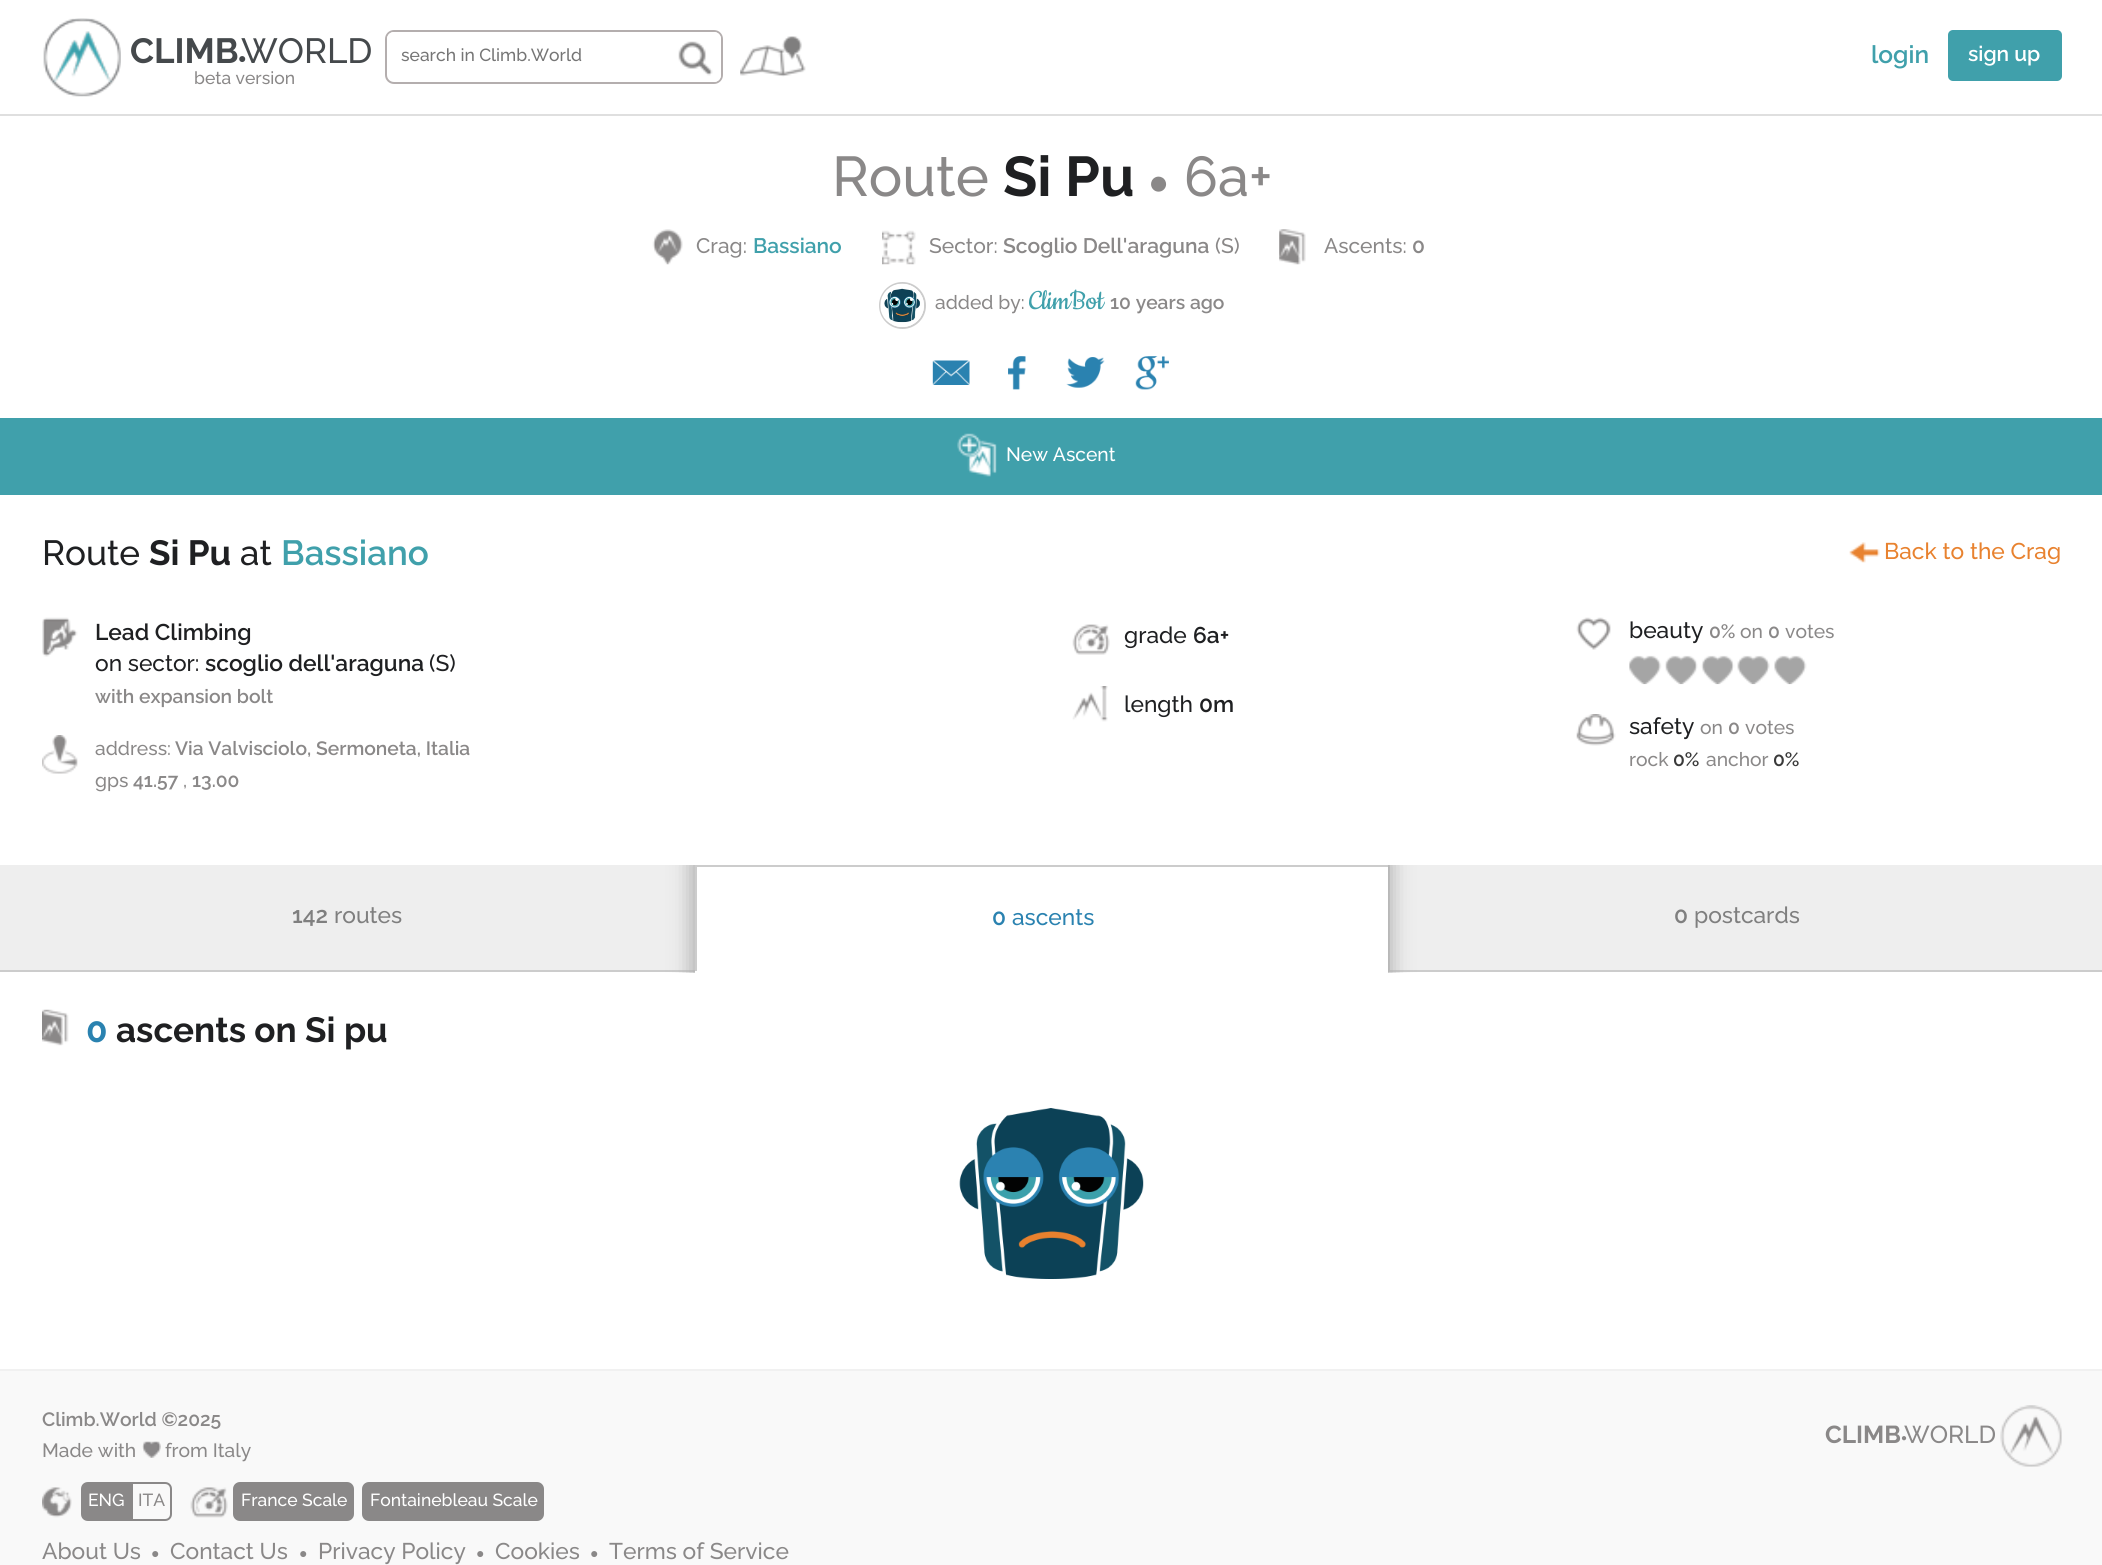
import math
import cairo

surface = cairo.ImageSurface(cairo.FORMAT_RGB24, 2102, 1565)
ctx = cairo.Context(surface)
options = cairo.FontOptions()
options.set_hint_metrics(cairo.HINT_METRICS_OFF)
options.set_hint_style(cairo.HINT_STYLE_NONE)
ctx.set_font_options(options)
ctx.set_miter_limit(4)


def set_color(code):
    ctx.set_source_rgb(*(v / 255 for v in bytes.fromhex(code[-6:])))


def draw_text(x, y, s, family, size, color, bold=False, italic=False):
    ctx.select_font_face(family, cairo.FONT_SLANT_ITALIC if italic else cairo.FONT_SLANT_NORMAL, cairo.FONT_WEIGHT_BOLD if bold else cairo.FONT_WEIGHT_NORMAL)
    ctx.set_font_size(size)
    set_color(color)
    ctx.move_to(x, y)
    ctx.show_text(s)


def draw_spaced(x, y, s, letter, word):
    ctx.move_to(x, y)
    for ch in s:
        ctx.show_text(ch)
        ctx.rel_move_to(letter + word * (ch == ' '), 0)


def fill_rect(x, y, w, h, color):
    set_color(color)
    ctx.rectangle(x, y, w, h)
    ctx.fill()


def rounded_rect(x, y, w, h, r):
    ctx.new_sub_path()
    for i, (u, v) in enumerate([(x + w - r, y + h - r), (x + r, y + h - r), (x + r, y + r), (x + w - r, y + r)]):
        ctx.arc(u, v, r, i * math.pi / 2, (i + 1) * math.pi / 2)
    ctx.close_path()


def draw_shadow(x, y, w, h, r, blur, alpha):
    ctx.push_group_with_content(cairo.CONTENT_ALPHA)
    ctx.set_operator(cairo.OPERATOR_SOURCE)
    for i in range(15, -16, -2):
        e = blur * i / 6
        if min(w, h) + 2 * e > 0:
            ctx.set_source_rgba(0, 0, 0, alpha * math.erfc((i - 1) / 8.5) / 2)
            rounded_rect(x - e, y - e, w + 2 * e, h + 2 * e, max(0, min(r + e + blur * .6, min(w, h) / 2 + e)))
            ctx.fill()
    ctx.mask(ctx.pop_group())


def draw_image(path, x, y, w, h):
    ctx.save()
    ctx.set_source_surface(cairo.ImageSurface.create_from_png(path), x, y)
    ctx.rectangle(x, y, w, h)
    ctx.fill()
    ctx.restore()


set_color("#f9f9f9")
ctx.paint()
fill_rect(0, 0, 2102, 114, "#ffffff")
fill_rect(0, 114, 2102, 2, "#dfdfdf")
draw_image("assets/img1.png", 43, 18, 78, 79)
draw_text(130, 63, "CLIMB", "Raleway", 35, "#45494c", bold=True)
ctx.select_font_face("Liberation Sans")
ctx.set_font_size(14)
draw_spaced(238, 63, "●", -5, 0)
draw_text(241, 63, "WORLD", "Raleway Medium", 35, "#45494c")
draw_text(194, 84, "beta version", "Raleway Medium", 17.5, "#8a8888")
rounded_rect(386, 31, 336, 52, 8)
set_color("#b4aeae")
ctx.stroke()
set_color("#ffffff")
ctx.new_path()
ctx.move_to(394, 32)
ctx.line_to(669, 32)
ctx.line_to(669, 79)
ctx.line_to(394, 79)
ctx.curve_to(390, 79, 387, 76, 387, 72)
ctx.line_to(387, 39)
ctx.curve_to(387, 35, 390, 32, 394, 32)
ctx.close_path()
ctx.fill()
draw_text(401, 61, "search in Climb.World", "Raleway Medium", 17.5, "#757575")
set_color("#ffffff")
ctx.new_path()
ctx.move_to(669, 32)
ctx.line_to(714, 32)
ctx.curve_to(718, 32, 721, 35, 721, 39)
ctx.line_to(721, 75)
ctx.curve_to(721, 79, 718, 82, 714, 82)
ctx.line_to(669, 82)
ctx.close_path()
ctx.fill()
draw_image("assets/img2.png", 678, 41, 35, 35)
draw_image("assets/img3.png", 740, 36, 66, 41)
draw_text(1871, 63, "login", "Raleway SemiBold", 24.5, "#40a0ab")
rounded_rect(1948, 30, 114, 51, 5)
ctx.fill()
draw_text(1968, 61, "sign up", "Raleway SemiBold", 21, "#ffffff")
fill_rect(0, 116, 2102, 1253, "#ffffff")
draw_text(832, 196, "Route", "Raleway Medium", 56, "#8a8888")
draw_text(1003, 196, "Si Pu", "Raleway", 56, "#1f2022", bold=True)
draw_text(1148, 194, "●", "Liberation Sans", 35, "#8a8888")
draw_text(1184, 196, "6a+", "Raleway Medium", 56, "#8a8888")
draw_image("assets/img4.png", 652, 229, 31, 36)
draw_text(696, 253, "Crag:", "Raleway Medium", 21, "#8a8888")
draw_text(753, 253, "Bassiano", "Raleway SemiBold", 21, "#40a0ab")
draw_image("assets/img5.png", 882, 230, 34, 35)
draw_text(929, 253, "Sector:", "Raleway Medium", 21, "#8a8888")
draw_text(1003, 253, "Scoglio Dell'araguna", "Raleway SemiBold", 21, "#8a8888")
draw_text(1215, 253, "(S)", "Raleway Medium", 21, "#8a8888")
draw_image("assets/img6.png", 1279, 229, 27, 36)
draw_text(1324, 253, "Ascents:", "Raleway Medium", 21, "#8a8888")
draw_text(1412, 253, "0", "Raleway SemiBold", 21, "#8a8888")
ctx.new_path()
ctx.arc(902.5, 305.5, 22.5, 0, 2 * math.pi)
set_color("#cccccc")
ctx.stroke()
draw_image("assets/img7.png", 880, 283, 44, 44)
draw_text(935, 309, "added by:", "Raleway Medium", 19.25, "#8a8888")
draw_text(1029, 309, "ClimBot", "Cookie", 31.5, "#40a0ab")
draw_text(1110, 309, "10 years ago", "Raleway SemiBold", 19.25, "#8a8888")
draw_image("assets/img8.png", 932, 360, 38, 25)
draw_image("assets/img9.png", 1008, 356, 18, 34)
draw_image("assets/img10.png", 1066, 357, 39, 31)
draw_image("assets/img11.png", 1135, 356, 34, 34)
fill_rect(0, 418, 2102, 77, "#40a0ab")
draw_image("assets/img12.png", 957, 433, 40, 44)
draw_text(1006, 461, "New Ascent", "Raleway Medium", 19.25, "#ffffff")
draw_text(42, 565, "Route", "Raleway Medium", 35, "#1f2022")
draw_text(149, 565, "Si Pu", "Raleway", 35, "#1f2022", bold=True)
draw_text(240, 565, "at", "Raleway Medium", 35, "#1f2022")
draw_text(281, 565, "Bassiano", "Raleway SemiBold", 35, "#40a0ab")
draw_image("assets/img13.png", 1849, 542, 31, 21)
draw_text(1884, 559, "Back to the Crag", "Raleway Medium", 22.75, "#e8822f")
draw_image("assets/img14.png", 42, 617, 36, 40)
draw_text(95, 640, "Lead Climbing", "Raleway SemiBold", 22.75, "#1f2022")
draw_text(95, 671, "on sector:", "Raleway Medium", 22.75, "#1f2022")
draw_text(205, 671, "scoglio dell'araguna", "Raleway SemiBold", 22.75, "#1f2022")
draw_text(429, 671, "(S)", "Raleway Medium", 22.75, "#1f2022")
draw_text(95, 703, "with expansion bolt", "Raleway SemiBold", 19.25, "#8a8888")
draw_image("assets/img15.png", 42, 735, 36, 39)
draw_text(95, 755, "address:", "Raleway Medium", 19.25, "#8a8888")
draw_text(175, 755, "Via Valvisciolo, Sermoneta, Italia", "Raleway SemiBold", 19.25, "#8a8888")
draw_text(95, 787, "gps", "Raleway Medium", 19.25, "#8a8888")
draw_text(133, 787, "41.57", "Raleway SemiBold", 19.25, "#8a8888")
draw_text(183, 787, ",", "Raleway Medium", 19.25, "#8a8888")
draw_text(192, 787, "13.00", "Raleway SemiBold", 19.25, "#8a8888")
draw_image("assets/img16.png", 1072, 624, 38, 31)
draw_text(1124, 643, "grade", "Raleway Medium", 22.75, "#1f2022")
draw_text(1193, 643, "6a+", "Raleway SemiBold", 22.75, "#1f2022")
draw_image("assets/img17.png", 1072, 686, 36, 36)
draw_text(1124, 712, "length", "Raleway Medium", 22.75, "#1f2022")
draw_text(1199, 712, "0m", "Raleway SemiBold", 22.75, "#1f2022")
draw_image("assets/img18.png", 1576, 617, 35, 33)
draw_text(1629, 638, "beauty", "Raleway Medium", 22.75, "#1f2022")
draw_text(1709, 638, "0%", "Raleway SemiBold", 19.25, "#8a8888")
draw_text(1740, 638, "on", "Raleway Medium", 19.25, "#8a8888")
draw_text(1768, 638, "0", "Raleway SemiBold", 19.25, "#8a8888")
draw_text(1785, 638, "votes", "Raleway Medium", 19.25, "#8a8888")
draw_image("assets/img19.png", 1629, 655, 178, 30)
draw_image("assets/img20.png", 1576, 714, 40, 32)
draw_text(1629, 734, "safety", "Raleway Medium", 22.75, "#1f2022")
draw_text(1700, 734, "on", "Raleway Medium", 19.25, "#8a8888")
draw_text(1728, 734, "0", "Raleway SemiBold", 19.25, "#8a8888")
draw_text(1745, 734, "votes", "Raleway Medium", 19.25, "#8a8888")
draw_text(1629, 766, "rock", "Raleway Medium", 19.25, "#8a8888")
draw_text(1673, 766, "0%", "Raleway SemiBold", 19.25, "#3a3a3a")
draw_text(1706, 766, "anchor", "Raleway Medium", 19.25, "#8a8888")
draw_text(1773, 766, "0%", "Raleway SemiBold", 19.25, "#3a3a3a")
fill_rect(0, 865, 695, 105, "#eeeeee")
fill_rect(0, 970, 695, 2, "#cccccc")
draw_text(292, 923, "142", "Raleway SemiBold", 22.75, "#7f7f7f")
draw_text(334, 923, "routes", "Raleway Medium", 22.75, "#7f7f7f")
fill_rect(1390, 865, 712, 105, "#eeeeee")
fill_rect(1388, 970, 714, 2, "#cccccc")
fill_rect(1388, 865, 2, 105, "#cccccc")
ctx.save()
ctx.rectangle(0, 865, 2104, 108)
ctx.clip()
set_color("#adadad")
draw_shadow(691, 861, 700, 116, 0, 10.5, 1)
ctx.restore()
fill_rect(695, 867, 693, 106, "#ffffff")
fill_rect(695, 865, 693, 2, "#cccccc")
fill_rect(695, 866, 2, 105, "#cccccc")
draw_text(992, 925, "0", "Raleway SemiBold", 22.75, "#2a82b0")
draw_text(1012, 925, "ascents", "Raleway Medium", 22.75, "#2a82b0")
draw_text(1674, 923, "0", "Raleway SemiBold", 22.75, "#7f7f7f")
draw_text(1694, 923, "postcards", "Raleway Medium", 22.75, "#7f7f7f")
draw_image("assets/img21.png", 42, 1009, 27, 37)
draw_text(86, 1042, "0", "Raleway", 35, "#2a82b0", bold=True)
draw_text(116, 1042, "ascents on Si pu", "Raleway", 35, "#1f2022", bold=True)
draw_image("assets/img22.png", 959, 1108, 185, 171)
fill_rect(0, 1369, 2102, 2, "#f1f1f1")
draw_text(42, 1426, "Climb.World ©2025", "Raleway SemiBold", 19.25, "#8a8888")
draw_text(42, 1457, "Made with", "Raleway Medium", 19.25, "#8a8888")
draw_image("assets/img23.png", 142, 1441, 19, 17)
draw_text(165, 1457, "from Italy", "Raleway Medium", 19.25, "#8a8888")
draw_image("assets/img24.png", 42, 1487, 30, 31)
ctx.new_path()
ctx.move_to(88, 1483)
ctx.line_to(130, 1483)
ctx.line_to(130, 1520)
ctx.line_to(88, 1520)
ctx.curve_to(84.5, 1520, 82, 1517.5, 82, 1514)
ctx.line_to(82, 1489)
ctx.curve_to(82, 1485.5, 84.5, 1483, 88, 1483)
ctx.close_path()
ctx.fill_preserve()
ctx.stroke()
draw_text(88, 1506, "ENG", "Raleway Medium", 17.5, "#ffffff")
ctx.new_path()
ctx.move_to(132, 1483)
ctx.line_to(165, 1483)
ctx.curve_to(168.5, 1483, 171, 1485.5, 171, 1489)
ctx.line_to(171, 1514)
ctx.curve_to(171, 1517.5, 168.5, 1520, 165, 1520)
ctx.line_to(132, 1520)
ctx.close_path()
set_color("#8a8888")
ctx.stroke()
draw_text(138, 1506, "ITA", "Raleway Medium", 17.5, "#8a8888")
draw_image("assets/img25.png", 190, 1487, 38, 31)
rounded_rect(234, 1483, 119, 37, 6)
ctx.fill_preserve()
ctx.stroke()
draw_text(241, 1506, "France Scale", "Raleway Medium", 17.5, "#ffffff")
set_color("#8a8888")
rounded_rect(363, 1483, 180, 37, 6)
ctx.fill_preserve()
ctx.stroke()
draw_text(370, 1506, "Fontainebleau Scale", "Raleway Medium", 17.5, "#ffffff")
draw_text(42, 1559, "About Us", "Raleway Medium", 22.75, "#8a8888")
draw_text(151, 1558, "●", "Liberation Sans", 14, "#8a8888")
draw_text(170, 1559, "Contact Us", "Raleway Medium", 22.75, "#8a8888")
draw_text(299, 1558, "●", "Liberation Sans", 14, "#8a8888")
draw_text(318, 1559, "Privacy Policy", "Raleway Medium", 22.75, "#8a8888")
draw_text(476, 1558, "●", "Liberation Sans", 14, "#8a8888")
draw_text(495, 1559, "Cookies", "Raleway Medium", 22.75, "#8a8888")
draw_text(590, 1558, "●", "Liberation Sans", 14, "#8a8888")
draw_text(609, 1559, "Terms of Service", "Raleway Medium", 22.75, "#8a8888")
draw_image("assets/img26.png", 2000, 1405, 62, 62)
draw_text(1825, 1443, "CLIMB", "Raleway", 24.5, "#8a8888", bold=True)
ctx.select_font_face("Liberation Sans")
ctx.set_font_size(10)
draw_spaced(1901, 1441, "●", -4, 0)
draw_text(1904, 1443, "WORLD", "Raleway Medium", 24.5, "#8a8888")
surface.write_to_png("output.png")
